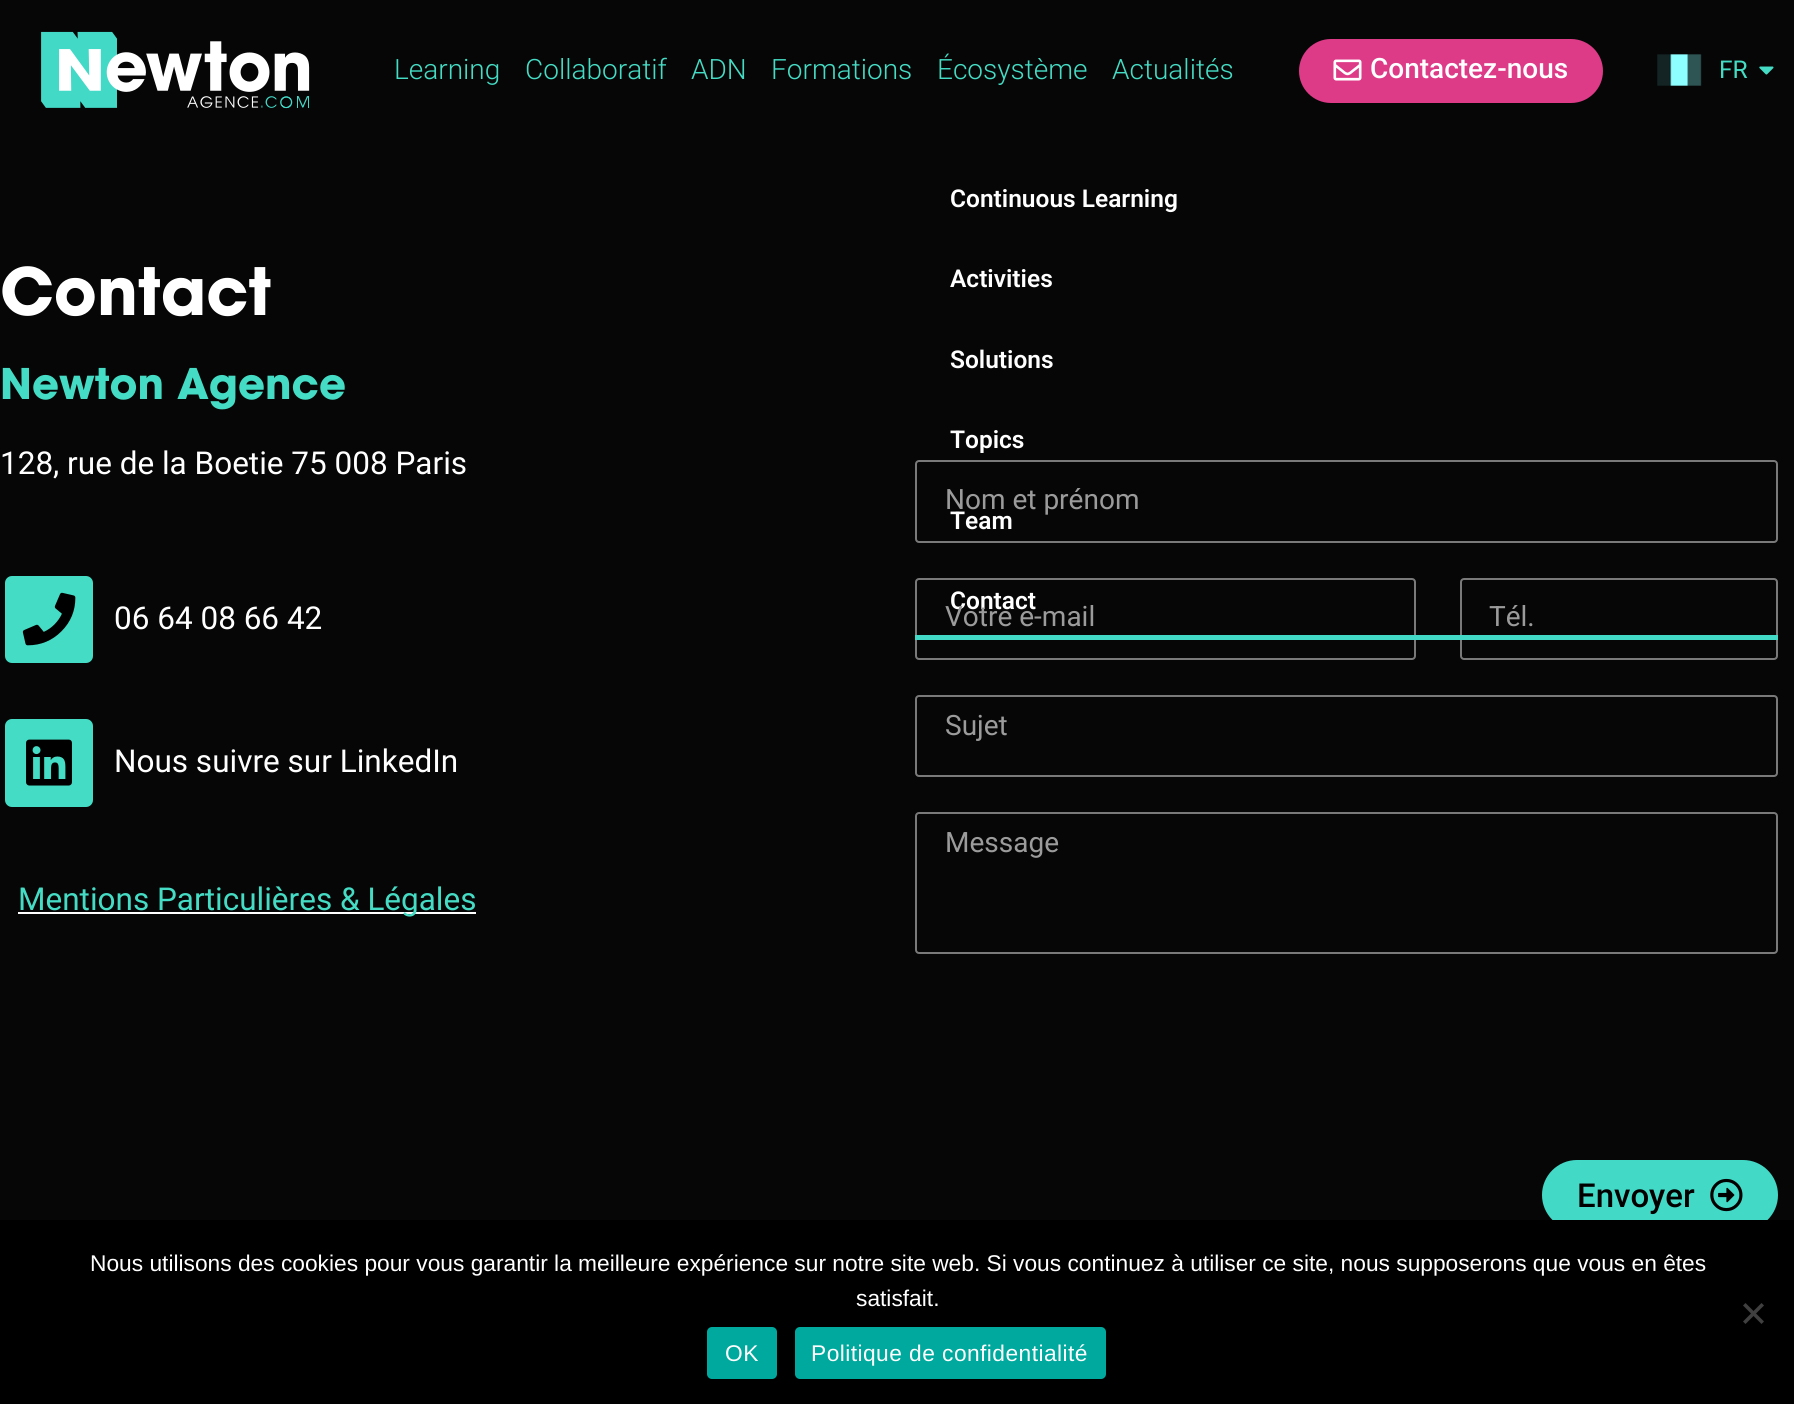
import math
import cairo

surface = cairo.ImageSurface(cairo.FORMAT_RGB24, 1794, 1404)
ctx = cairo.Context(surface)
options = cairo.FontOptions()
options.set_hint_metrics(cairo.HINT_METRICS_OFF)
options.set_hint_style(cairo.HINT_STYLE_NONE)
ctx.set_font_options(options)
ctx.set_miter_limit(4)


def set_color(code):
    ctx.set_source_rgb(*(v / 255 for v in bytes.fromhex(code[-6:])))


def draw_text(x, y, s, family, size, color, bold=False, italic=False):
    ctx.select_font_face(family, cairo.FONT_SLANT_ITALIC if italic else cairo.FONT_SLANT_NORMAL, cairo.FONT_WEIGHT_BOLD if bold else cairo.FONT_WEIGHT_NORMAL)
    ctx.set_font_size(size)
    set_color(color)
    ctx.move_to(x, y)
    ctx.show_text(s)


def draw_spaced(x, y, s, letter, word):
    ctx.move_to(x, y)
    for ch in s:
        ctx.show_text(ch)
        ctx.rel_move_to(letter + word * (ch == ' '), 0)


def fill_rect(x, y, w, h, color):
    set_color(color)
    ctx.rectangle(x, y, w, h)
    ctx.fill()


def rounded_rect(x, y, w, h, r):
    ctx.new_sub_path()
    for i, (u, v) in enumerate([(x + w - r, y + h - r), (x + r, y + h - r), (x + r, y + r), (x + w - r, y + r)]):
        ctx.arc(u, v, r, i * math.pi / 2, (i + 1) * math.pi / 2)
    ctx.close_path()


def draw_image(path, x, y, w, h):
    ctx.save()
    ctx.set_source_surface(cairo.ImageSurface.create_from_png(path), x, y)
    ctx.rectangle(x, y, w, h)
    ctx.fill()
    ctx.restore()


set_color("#060606")
ctx.paint()
draw_image("assets/img1.png", 41, 31, 269, 78)
draw_text(394, 79, "Learning", "Roboto Light", 28, "#44dcc4")
draw_text(525, 79, "Collaboratif", "Roboto Light", 28, "#44dcc4")
draw_text(691, 79, "ADN", "Roboto Light", 28, "#44dcc4")
draw_text(771, 79, "Formations", "Roboto Light", 28, "#44dcc4")
draw_text(937, 79, "Écosystème", "Roboto Light", 28, "#44dcc4")
draw_text(1112, 79, "Actualités", "Roboto Light", 28, "#44dcc4")
set_color("#dd3a87")
rounded_rect(1299, 39, 304, 64, 32)
ctx.fill()
draw_image("assets/img2.png", 1333, 59, 29, 22)
draw_text(1370, 78, "Contactez-nous", "Roboto Medium", 28, "#ffffff")
draw_image("assets/img3.png", 1657, 54, 45, 32)
draw_text(1719, 78, "FR", "Roboto", 24.5, "#44dcc4")
draw_image("assets/img4.png", 1759, 66, 15, 9)
draw_text(950, 207, "Continuous Learning", "Roboto SemiBold", 24.5, "#ffffff")
draw_text(950, 287, "Activities", "Roboto SemiBold", 24.5, "#ffffff")
draw_text(950, 368, "Solutions", "Roboto SemiBold", 24.5, "#ffffff")
draw_text(950, 448, "Topics", "Roboto SemiBold", 24.5, "#ffffff")
rounded_rect(916, 461, 861, 81, 3)
set_color("#797979")
ctx.stroke()
draw_text(950, 529, "Team", "Roboto SemiBold", 24.5, "#ffffff")
rounded_rect(916, 579, 499, 80, 3)
set_color("#797979")
ctx.stroke()
draw_text(950, 609, "Contact", "Roboto SemiBold", 24.5, "#ffffff")
rounded_rect(1461, 579, 316, 80, 3)
set_color("#797979")
ctx.stroke()
fill_rect(915, 635, 863, 5, "#43d9c7")
draw_text(0, 315, "Contact", "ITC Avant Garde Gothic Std", 64.75, "#ffffff", bold=True)
draw_text(0, 399, "Newton Agence", "ITC Avant Garde Gothic Std", 42, "#44dcc4", bold=True)
draw_text(0, 474, "128, rue de la Boetie 75 008 Paris", "Roboto", 31.5, "#ffffff")
set_color("#44dcc4")
rounded_rect(5, 576, 88, 87, 7)
ctx.fill()
draw_image("assets/img5.png", 22, 592, 54, 54)
draw_text(114, 629, "06 64 08 66 42", "Roboto", 31.5, "#ffffff")
set_color("#44dcc4")
rounded_rect(5, 719, 88, 88, 7)
ctx.fill()
draw_image("assets/img6.png", 26, 739, 46, 47)
draw_text(114, 772, "Nous suivre sur LinkedIn", "Roboto", 31.5, "#ffffff")
fill_rect(18, 912, 458, 2, "#ffffff")
draw_text(18, 910, "Mentions Particulières & Légales", "Roboto", 31.5, "#44dcc4")
draw_text(945, 509, "Nom et prénom", "Roboto", 28, "#9b9b9b")
draw_text(945, 626, "Votre e-mail", "Roboto", 28, "#9b9b9b")
draw_text(1489, 626, "Tél.", "Roboto", 28, "#9b9b9b")
rounded_rect(916, 696, 861, 80, 3)
set_color("#797979")
ctx.stroke()
draw_text(945, 735, "Sujet", "Roboto", 28, "#9b9b9b")
rounded_rect(916, 813, 861, 140, 3)
set_color("#797979")
ctx.stroke()
draw_text(945, 852, "Message", "Roboto", 28, "#9b9b9b")
set_color("#43d9c7")
rounded_rect(1542, 1160, 236, 70, 35)
ctx.fill()
draw_text(1577, 1207, "Envoyer", "Roboto Medium", 33, "#000000")
draw_image("assets/img7.png", 1710, 1178, 33, 34)
fill_rect(0, 1220, 1794, 184, "#000000")
draw_text(90, 1271, "Nous utilisons des cookies pour vous garantir la meilleure expérience sur notre site web. Si vous continuez à utiliser ce site, nous supposerons que vous en êtes", "Liberation Sans", 22.75, "#ffffff")
draw_text(856, 1306, "satisfait.", "Liberation Sans", 22.75, "#ffffff")
set_color("#404040")
ctx.new_path()
ctx.move_to(1761.5, 1303)
ctx.line_to(1764, 1305.5)
ctx.line_to(1745.5, 1324)
ctx.line_to(1743, 1321.5)
ctx.close_path()
ctx.fill()
ctx.new_path()
ctx.move_to(1743, 1305.5)
ctx.line_to(1745.5, 1303)
ctx.line_to(1764, 1321.5)
ctx.line_to(1761.5, 1324)
ctx.close_path()
ctx.fill()
set_color("#00a99d")
rounded_rect(707, 1327, 70, 52, 5)
ctx.fill()
set_color("#ffffff")
draw_spaced(725, 1361, "OK", 0.45, 0)
set_color("#00a99d")
rounded_rect(795, 1327, 311, 52, 5)
ctx.fill()
set_color("#ffffff")
draw_spaced(811, 1361, "Politique de confidentialité", 0.45, 0)
surface.write_to_png("output.png")
